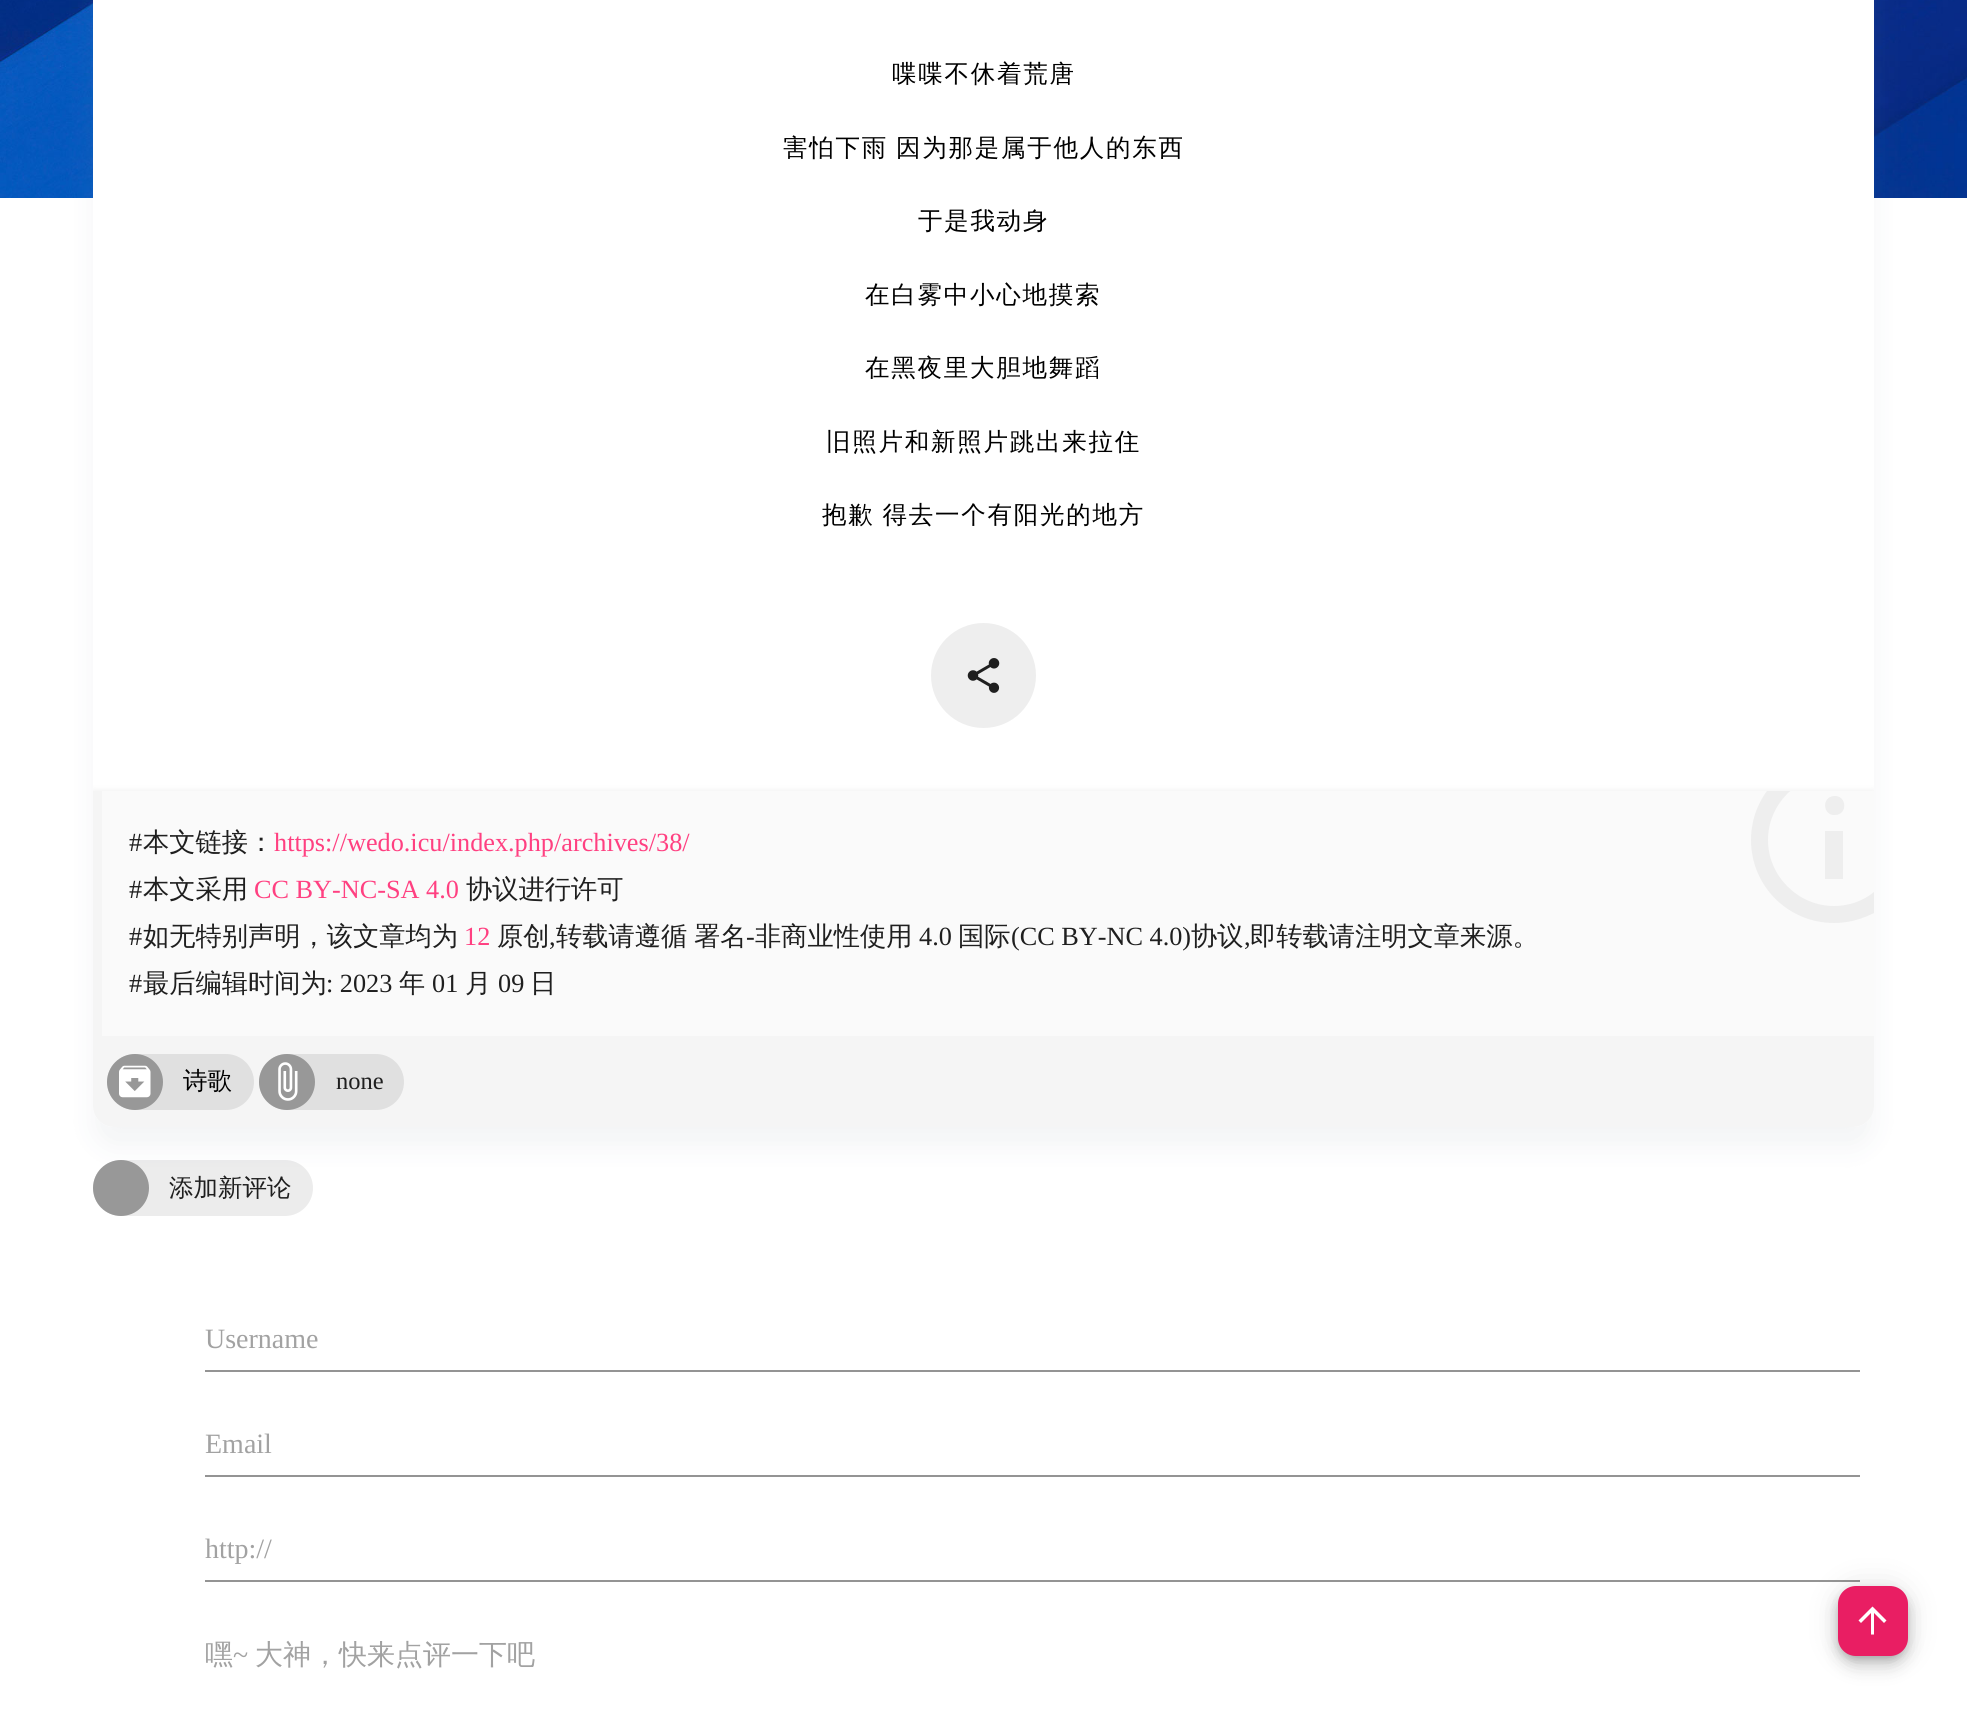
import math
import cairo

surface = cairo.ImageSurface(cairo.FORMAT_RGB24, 1967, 1732)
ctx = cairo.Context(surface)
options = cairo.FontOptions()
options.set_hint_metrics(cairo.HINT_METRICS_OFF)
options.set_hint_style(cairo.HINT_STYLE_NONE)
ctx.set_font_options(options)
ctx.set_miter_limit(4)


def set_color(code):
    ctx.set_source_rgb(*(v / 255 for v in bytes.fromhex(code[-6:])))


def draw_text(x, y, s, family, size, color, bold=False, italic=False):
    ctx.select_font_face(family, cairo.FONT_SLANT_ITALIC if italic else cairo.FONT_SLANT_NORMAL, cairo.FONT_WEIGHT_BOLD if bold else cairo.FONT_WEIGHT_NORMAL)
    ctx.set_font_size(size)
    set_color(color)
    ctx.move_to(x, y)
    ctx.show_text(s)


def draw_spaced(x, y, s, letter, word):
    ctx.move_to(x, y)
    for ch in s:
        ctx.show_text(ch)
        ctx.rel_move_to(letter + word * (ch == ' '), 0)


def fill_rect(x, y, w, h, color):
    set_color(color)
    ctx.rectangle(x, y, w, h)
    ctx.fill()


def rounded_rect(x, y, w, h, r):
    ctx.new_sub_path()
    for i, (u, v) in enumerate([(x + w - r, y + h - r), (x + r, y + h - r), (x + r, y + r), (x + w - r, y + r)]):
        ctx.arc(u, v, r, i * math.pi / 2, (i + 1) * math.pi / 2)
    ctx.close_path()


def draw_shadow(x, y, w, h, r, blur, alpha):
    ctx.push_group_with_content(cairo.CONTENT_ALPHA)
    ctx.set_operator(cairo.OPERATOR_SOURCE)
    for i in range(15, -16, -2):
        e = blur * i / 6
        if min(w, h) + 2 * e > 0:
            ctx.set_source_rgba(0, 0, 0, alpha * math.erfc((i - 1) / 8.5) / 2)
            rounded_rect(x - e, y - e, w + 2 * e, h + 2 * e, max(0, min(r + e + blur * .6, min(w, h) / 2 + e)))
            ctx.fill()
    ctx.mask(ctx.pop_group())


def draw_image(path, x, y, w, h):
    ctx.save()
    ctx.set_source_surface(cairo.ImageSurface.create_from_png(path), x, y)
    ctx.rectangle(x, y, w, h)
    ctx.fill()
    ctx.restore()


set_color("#ffffff")
ctx.paint()
draw_image("assets/img1.png", 0, 0, 1967, 198)
set_color("#ececec")
rounded_rect(93, 1160, 220, 56, 28)
ctx.fill()
set_color("#8c98a4")
draw_shadow(93, -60, 1781, 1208, 21, 13, 0.1)
set_color("#ffffff")
rounded_rect(93, -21, 1781, 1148, 21)
ctx.fill()
ctx.select_font_face("WenQuanYi Zen Hei Medium")
ctx.set_font_size(24.5)
set_color("#000000")
draw_spaced(892, 82, "喋喋不休着荒唐", 1.75, 0)
draw_spaced(783, 156, "害怕下雨 因为那是属于他人的东西", 1.75, -1)
draw_spaced(918, 229, "于是我动身", 1.75, 0)
draw_spaced(865, 303, "在白雾中小心地摸索", 1.75, 0)
draw_spaced(865, 376, "在黑夜里大胆地舞蹈", 1.75, 0)
draw_spaced(826, 450, "旧照片和新照片跳出来拉住", 1.75, 0)
draw_spaced(822, 523, "抱歉 得去一个有阳光的地方", 1.75, -1)
set_color("#eeeeee")
ctx.new_path()
ctx.arc(983.5, 675.5, 52.5, 0, 2 * math.pi)
ctx.fill()
draw_image("assets/img2.png", 967, 658, 33, 35)
ctx.save()
rounded_rect(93, -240, 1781, 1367, 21)
ctx.clip()
set_color("#000000")
draw_shadow(93, 793, 1781, 245, 0, 4.5, 0.12)
ctx.restore()
fill_rect(102, 791, 1772, 245, "#fafafa")
fill_rect(93, 791, 9, 245, "#f5f5f5")
draw_text(129, 851, "#", "Liberation Serif", 26.25, "#1f1f1f")
draw_text(143, 851, "本文链接：", "WenQuanYi Zen Hei Medium", 26.25, "#1f1f1f")
draw_text(274, 851, "https://wedo.icu/index.php/archives/38/", "Liberation Serif", 26.25, "#ff4081")
draw_text(129, 898, "#", "Liberation Serif", 26.25, "#1f1f1f")
draw_text(143, 898, "本文采用", "WenQuanYi Zen Hei Medium", 26.25, "#1f1f1f")
draw_text(254, 898, "CC BY-NC-SA 4.0", "Liberation Serif", 26.25, "#ff4081")
draw_text(466, 898, "协议进行许可", "WenQuanYi Zen Hei Medium", 26.25, "#1f1f1f")
draw_text(129, 945, "#", "Liberation Serif", 26.25, "#1f1f1f")
draw_text(143, 945, "如无特别声明，该文章均为", "WenQuanYi Zen Hei Medium", 26.25, "#1f1f1f")
draw_text(464, 945, "12", "Liberation Serif", 26.25, "#ff4081")
draw_text(497, 945, "原创", "WenQuanYi Zen Hei Medium", 26.25, "#1f1f1f")
draw_text(556, 945, "转载请遵循", "WenQuanYi Zen Hei Medium", 26.25, "#1f1f1f")
draw_text(694, 945, "署名", "WenQuanYi Zen Hei Medium", 26.25, "#1f1f1f")
draw_text(746, 945, "-", "Liberation Serif", 26.25, "#1f1f1f")
draw_text(755, 945, "非商业性使用", "WenQuanYi Zen Hei Medium", 26.25, "#1f1f1f")
draw_text(919, 945, "4.0", "Liberation Serif", 26.25, "#1f1f1f")
draw_text(958, 945, "国际", "WenQuanYi Zen Hei Medium", 26.25, "#1f1f1f")
draw_text(1011, 945, "(CC BY-NC 4.0)", "Liberation Serif", 26.25, "#1f1f1f")
draw_text(1191, 945, "协议", "WenQuanYi Zen Hei Medium", 26.25, "#1f1f1f")
draw_text(1250, 945, "即转载请注明文章来源。", "WenQuanYi Zen Hei Medium", 26.25, "#1f1f1f")
draw_text(549, 945, ",", "Liberation Serif", 26.25, "#1f1f1f")
draw_text(1244, 945, ",", "Liberation Serif", 26.25, "#1f1f1f")
draw_text(129, 992, "#", "Liberation Serif", 26.25, "#1f1f1f")
draw_text(143, 992, "最后编辑时间为", "WenQuanYi Zen Hei Medium", 26.25, "#1f1f1f")
draw_text(326, 992, ": 2023", "Liberation Serif", 26.25, "#1f1f1f")
draw_text(399, 992, "年", "WenQuanYi Zen Hei Medium", 26.25, "#1f1f1f")
draw_text(432, 992, "01", "Liberation Serif", 26.25, "#1f1f1f")
draw_text(465, 992, "月", "WenQuanYi Zen Hei Medium", 26.25, "#1f1f1f")
draw_text(498, 992, "09", "Liberation Serif", 26.25, "#1f1f1f")
draw_text(530, 992, "日", "WenQuanYi Zen Hei Medium", 26.25, "#1f1f1f")
ctx.save()
ctx.rectangle(1729, 791, 145, 154)
ctx.clip()
set_color("#eeeeee")
ctx.set_fill_rule(cairo.FILL_RULE_EVEN_ODD)
ctx.new_path()
ctx.move_to(1834, 757)
ctx.curve_to(1788, 757, 1751, 794, 1751, 840)
ctx.curve_to(1751, 886, 1788, 923, 1834, 923)
ctx.curve_to(1849, 923, 1862, 919, 1874, 913)
ctx.line_to(1874, 892)
ctx.curve_to(1863, 901, 1849, 906, 1834, 906)
ctx.curve_to(1798, 906, 1768, 876, 1768, 840)
ctx.curve_to(1768, 804, 1798, 774, 1834, 774)
ctx.curve_to(1849, 774, 1863, 779, 1874, 788)
ctx.line_to(1874, 767)
ctx.curve_to(1862, 761, 1849, 757, 1834, 757)
ctx.close_path()
ctx.move_to(1834, 796)
ctx.curve_to(1821, 797, 1823, 816, 1835, 815)
ctx.curve_to(1848, 815, 1847, 795, 1834, 796)
ctx.close_path()
ctx.move_to(1843, 831)
ctx.line_to(1825, 831)
ctx.line_to(1825, 879)
ctx.line_to(1843, 879)
ctx.close_path()
ctx.fill()
ctx.restore()
set_color("#f5f5f5")
ctx.new_path()
ctx.move_to(93, 1036)
ctx.line_to(1874, 1036)
ctx.line_to(1874, 1106)
ctx.curve_to(1874, 1117.5, 1864.5, 1127, 1853, 1127)
ctx.line_to(114, 1127)
ctx.curve_to(102.5, 1127, 93, 1117.5, 93, 1106)
ctx.close_path()
ctx.fill()
set_color("#e0e0e0")
rounded_rect(107, 1054, 147, 56, 28)
ctx.fill()
set_color("#989898")
ctx.arc(135, 1082, 28, 0, 2 * math.pi)
ctx.fill()
draw_image("assets/img3.png", 119, 1065, 32, 33)
draw_text(183, 1089, "诗歌", "WenQuanYi Zen Hei Medium", 24.5, "#000000")
set_color("#e0e0e0")
rounded_rect(259, 1054, 145, 56, 28)
ctx.fill()
set_color("#989898")
ctx.arc(287, 1082, 28, 0, 2 * math.pi)
ctx.fill()
draw_image("assets/img4.png", 278, 1062, 20, 39)
draw_text(336, 1089, "none", "Liberation Serif", 24.5, "#1f1f1f")
set_color("#989898")
ctx.new_path()
ctx.arc(121, 1188, 28, 0, 2 * math.pi)
ctx.fill()
draw_text(169, 1196, "添加新评论", "WenQuanYi Zen Hei Medium", 24.5, "#1f1f1f")
fill_rect(205, 1370, 1655, 2, "#949494")
draw_text(205, 1348, "Username", "Liberation Serif", 28, "#a2a2a2")
fill_rect(205, 1475, 1655, 2, "#949494")
draw_text(205, 1453, "Email", "Liberation Serif", 28, "#a2a2a2")
fill_rect(205, 1580, 1655, 2, "#949494")
draw_text(205, 1558, "http://", "Liberation Serif", 28, "#a2a2a2")
draw_text(205, 1664, "嘿", "WenQuanYi Zen Hei Medium", 28, "#a2a2a2")
draw_text(233, 1664, "~", "Liberation Serif", 28, "#a2a2a2")
draw_text(255, 1664, "大神，快来点评一下吧", "WenQuanYi Zen Hei Medium", 28, "#a2a2a2")
set_color("#000000")
draw_shadow(1838, 1587, 70, 70, 18, 16, 0.12)
draw_shadow(1838, 1596, 70, 70, 18, 9, 0.14)
draw_shadow(1839, 1593, 67, 66, 16, 4.5, 0.2)
set_color("#e91e63")
rounded_rect(1838, 1586, 70, 70, 18)
ctx.fill()
set_color("#ffffff")
ctx.new_path()
ctx.move_to(1858.5, 1620.5)
ctx.line_to(1872.5, 1606.5)
ctx.line_to(1886.5, 1620.5)
ctx.line_to(1884, 1623)
ctx.line_to(1874, 1613)
ctx.line_to(1874, 1634.5)
ctx.line_to(1871, 1634.5)
ctx.line_to(1871, 1613)
ctx.line_to(1861, 1623)
ctx.close_path()
ctx.fill()
surface.write_to_png("output.png")
